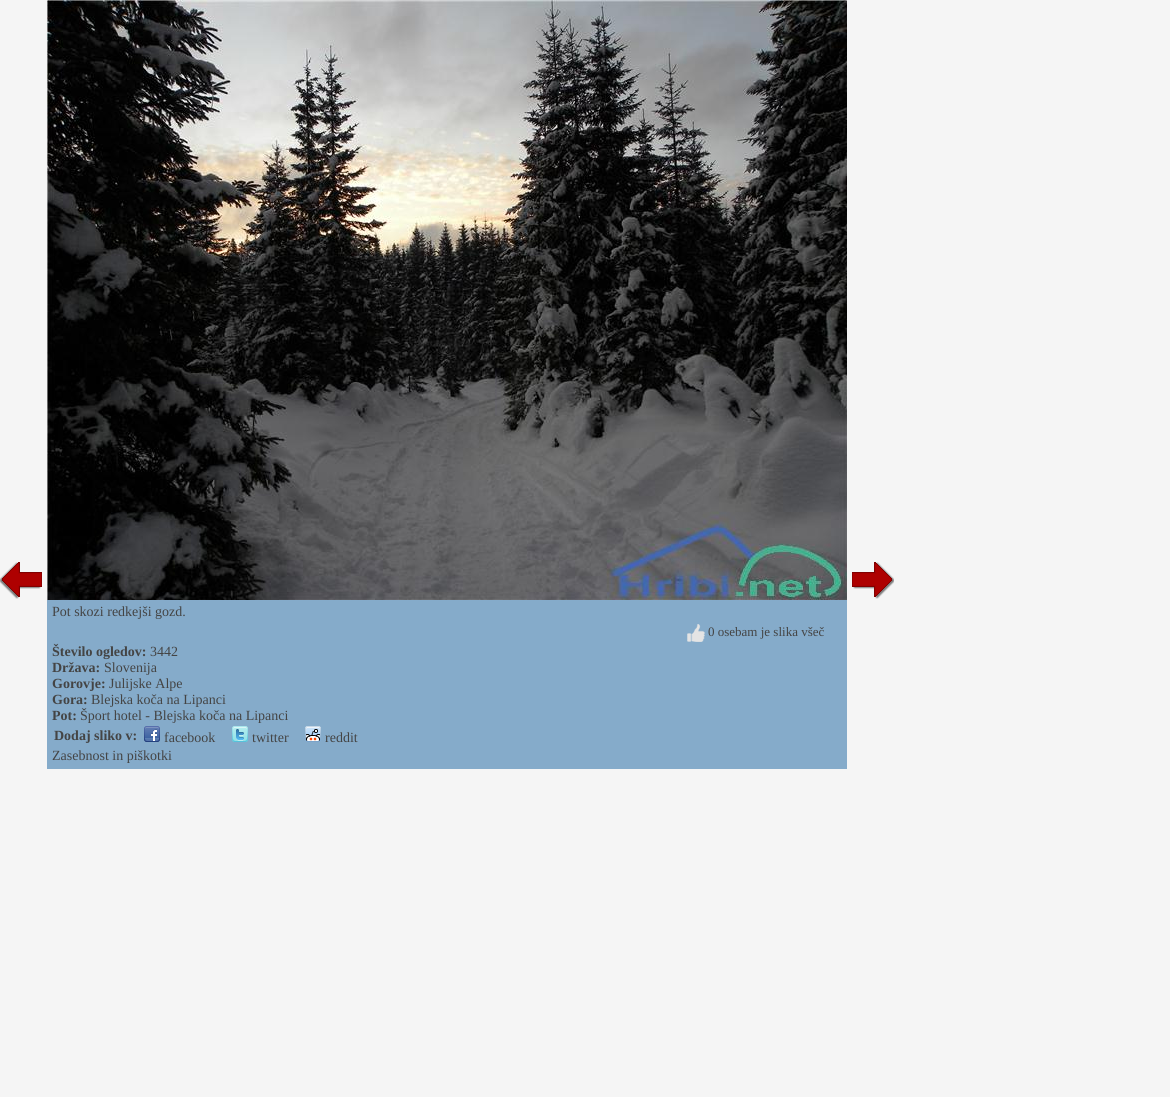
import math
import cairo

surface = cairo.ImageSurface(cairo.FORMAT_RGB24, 1170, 1097)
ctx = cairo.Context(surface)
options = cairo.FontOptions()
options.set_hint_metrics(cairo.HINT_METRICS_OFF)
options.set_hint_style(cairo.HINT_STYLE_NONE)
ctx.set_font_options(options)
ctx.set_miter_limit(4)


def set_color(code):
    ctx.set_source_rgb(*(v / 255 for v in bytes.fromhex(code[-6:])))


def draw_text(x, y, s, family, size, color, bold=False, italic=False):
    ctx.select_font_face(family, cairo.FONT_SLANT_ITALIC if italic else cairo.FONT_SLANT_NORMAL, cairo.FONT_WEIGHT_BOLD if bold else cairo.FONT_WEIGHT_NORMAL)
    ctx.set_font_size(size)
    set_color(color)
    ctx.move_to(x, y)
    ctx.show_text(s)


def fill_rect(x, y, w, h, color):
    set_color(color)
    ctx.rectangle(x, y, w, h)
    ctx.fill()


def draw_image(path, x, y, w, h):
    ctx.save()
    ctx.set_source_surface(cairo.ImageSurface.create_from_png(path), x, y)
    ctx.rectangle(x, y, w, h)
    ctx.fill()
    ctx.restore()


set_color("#f5f5f5")
ctx.paint()
draw_image("assets/img1.png", 0, 562, 42, 37)
draw_image("assets/img2.png", 852, 562, 42, 37)
fill_rect(47, 600, 800, 169, "#85abca")
draw_image("assets/img3.png", 47, 0, 800, 600)
draw_text(52, 616, "Pot skozi redkejši gozd.", "Liberation Serif", 14, "#444444")
draw_image("assets/img4.png", 687, 624, 18, 18)
draw_text(708, 636, "0 osebam je slika všeč", "Liberation Serif", 13, "#444444")
draw_text(52, 656, "Število ogledov:", "Liberation Serif", 14, "#444444", bold=True)
draw_text(150, 656, "3442", "Liberation Serif", 14, "#444444")
draw_text(52, 672, "Država:", "Liberation Serif", 14, "#444444", bold=True)
draw_text(104, 672, "Slovenija", "Liberation Serif", 14, "#444444")
draw_text(52, 688, "Gorovje:", "Liberation Serif", 14, "#444444", bold=True)
draw_text(109, 688, "Julijske Alpe", "Liberation Serif", 14, "#444444")
draw_text(52, 704, "Gora:", "Liberation Serif", 14, "#444444", bold=True)
draw_text(91, 704, "Blejska koča na Lipanci", "Liberation Serif", 14, "#444444")
draw_text(52, 720, "Pot:", "Liberation Serif", 14, "#444444", bold=True)
draw_text(80, 720, "Šport hotel - Blejska koča na Lipanci", "Liberation Serif", 14, "#444444")
draw_text(54, 740, "Dodaj sliko v:", "Liberation Serif", 14, "#444444", bold=True)
draw_image("assets/img5.png", 144, 726, 16, 16)
draw_text(164, 742, "facebook", "Liberation Serif", 14, "#444444")
draw_image("assets/img6.png", 232, 726, 16, 16)
draw_text(252, 742, "twitter", "Liberation Serif", 14, "#444444")
draw_image("assets/img7.png", 305, 726, 16, 16)
draw_text(325, 742, "reddit", "Liberation Serif", 14, "#444444")
draw_text(52, 760, "Zasebnost in piškotki", "Liberation Serif", 14, "#444444")
surface.write_to_png("output.png")
